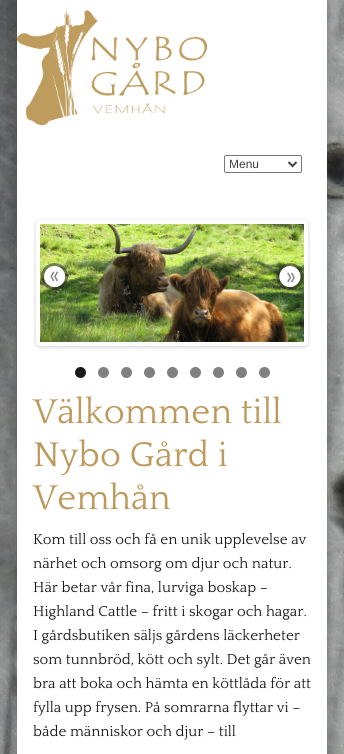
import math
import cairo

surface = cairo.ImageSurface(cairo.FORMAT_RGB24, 344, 754)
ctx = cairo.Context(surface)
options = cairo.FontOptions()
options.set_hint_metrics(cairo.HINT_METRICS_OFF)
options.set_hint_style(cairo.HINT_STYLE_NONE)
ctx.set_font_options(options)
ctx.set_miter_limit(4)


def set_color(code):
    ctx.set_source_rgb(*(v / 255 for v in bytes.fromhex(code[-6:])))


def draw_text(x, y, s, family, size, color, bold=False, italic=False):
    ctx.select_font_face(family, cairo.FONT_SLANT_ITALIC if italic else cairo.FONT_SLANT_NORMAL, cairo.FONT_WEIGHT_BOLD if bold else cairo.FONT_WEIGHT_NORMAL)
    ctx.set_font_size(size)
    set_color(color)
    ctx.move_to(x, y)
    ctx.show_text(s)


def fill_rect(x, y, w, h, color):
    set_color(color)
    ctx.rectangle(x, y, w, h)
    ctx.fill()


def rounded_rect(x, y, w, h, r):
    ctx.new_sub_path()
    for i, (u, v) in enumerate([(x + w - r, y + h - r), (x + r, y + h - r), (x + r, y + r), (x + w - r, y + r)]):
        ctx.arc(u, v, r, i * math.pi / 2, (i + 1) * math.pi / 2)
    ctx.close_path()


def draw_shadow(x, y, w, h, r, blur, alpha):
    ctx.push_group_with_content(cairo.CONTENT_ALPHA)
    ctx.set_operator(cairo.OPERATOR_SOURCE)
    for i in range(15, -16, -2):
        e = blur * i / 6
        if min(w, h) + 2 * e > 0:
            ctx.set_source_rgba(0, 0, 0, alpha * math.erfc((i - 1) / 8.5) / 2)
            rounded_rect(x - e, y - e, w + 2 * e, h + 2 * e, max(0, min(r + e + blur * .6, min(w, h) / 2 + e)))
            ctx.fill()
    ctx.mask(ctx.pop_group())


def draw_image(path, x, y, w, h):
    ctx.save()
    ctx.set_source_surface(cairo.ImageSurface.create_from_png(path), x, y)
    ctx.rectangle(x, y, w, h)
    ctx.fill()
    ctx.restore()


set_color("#ffffff")
ctx.paint()
draw_image("assets/img1.png", 0, 0, 344, 754)
set_color("#000000")
draw_shadow(17, 0, 310, 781, 0, 9, 0.4)
fill_rect(17, 0, 310, 754, "#ffffff")
draw_image("assets/img2.png", 17, 6, 190, 119)
rounded_rect(224.5, 155.5, 77, 17, 1.5)
set_color("#767676")
ctx.set_line_width(1)
ctx.stroke()
ctx.new_path()
ctx.move_to(288.5, 162)
ctx.line_to(292.5, 166)
ctx.line_to(296.5, 162)
set_color("#404040")
ctx.set_line_width(2)
ctx.stroke()
draw_text(229, 168, "Menu", "Liberation Sans", 12, "#404040")
set_color("#000000")
draw_shadow(36, 221, 272, 126, 4, 2, 0.2)
rounded_rect(38, 222, 268, 122, 2)
set_color("#ffffff")
ctx.set_line_width(4)
ctx.stroke()
draw_image("assets/img3.png", 40, 224, 264, 118)
draw_image("assets/img4.png", 41, 263, 28, 27)
draw_image("assets/img5.png", 274, 263, 30, 27)
set_color("#1a1a1a")
ctx.arc(80.5, 372.5, 5.5, 0, 2 * math.pi)
ctx.fill()
set_color("#808080")
ctx.arc(103.5, 372.5, 5.5, 0, 2 * math.pi)
ctx.fill()
ctx.arc(126.5, 372.5, 5.5, 0, 2 * math.pi)
ctx.fill()
ctx.arc(149.5, 372.5, 5.5, 0, 2 * math.pi)
ctx.fill()
ctx.arc(172.5, 372.5, 5.5, 0, 2 * math.pi)
ctx.fill()
ctx.arc(195.5, 372.5, 5.5, 0, 2 * math.pi)
ctx.fill()
ctx.arc(218.5, 372.5, 5.5, 0, 2 * math.pi)
ctx.fill()
ctx.arc(241.5, 372.5, 5.5, 0, 2 * math.pi)
ctx.fill()
ctx.arc(264.5, 372.5, 5.5, 0, 2 * math.pi)
ctx.fill()
draw_text(33, 423, "Välkommen till", "Quattrocento", 36, "#bd995c")
draw_text(33, 466, "Nybo Gård i", "Quattrocento", 36, "#bd995c")
draw_text(33, 509, "Vemhån", "Quattrocento", 36, "#bd995c")
draw_text(33, 544, "Kom till oss och få en unik upplevelse av", "Quattrocento", 15, "#1a121a")
draw_text(33, 568, "närhet och omsorg om djur och natur.", "Quattrocento", 15, "#1a121a")
draw_text(33, 592, "Här betar vår fina, lurviga boskap –", "Quattrocento", 15, "#1a121a")
draw_text(33, 616, "Highland Cattle – fritt i skogar och hagar.", "Quattrocento", 15, "#1a121a")
draw_text(33, 640, "I gårdsbutiken säljs gårdens läckerheter", "Quattrocento", 15, "#1a121a")
draw_text(33, 664, "som tunnbröd, kött och sylt. Det går även", "Quattrocento", 15, "#1a121a")
draw_text(33, 688, "bra att boka och hämta en köttlåda för att", "Quattrocento", 15, "#1a121a")
draw_text(33, 712, "fylla upp frysen. På somrarna flyttar vi –", "Quattrocento", 15, "#1a121a")
draw_text(33, 736, "både människor och djur – till", "Quattrocento", 15, "#1a121a")
surface.write_to_png("output.png")
